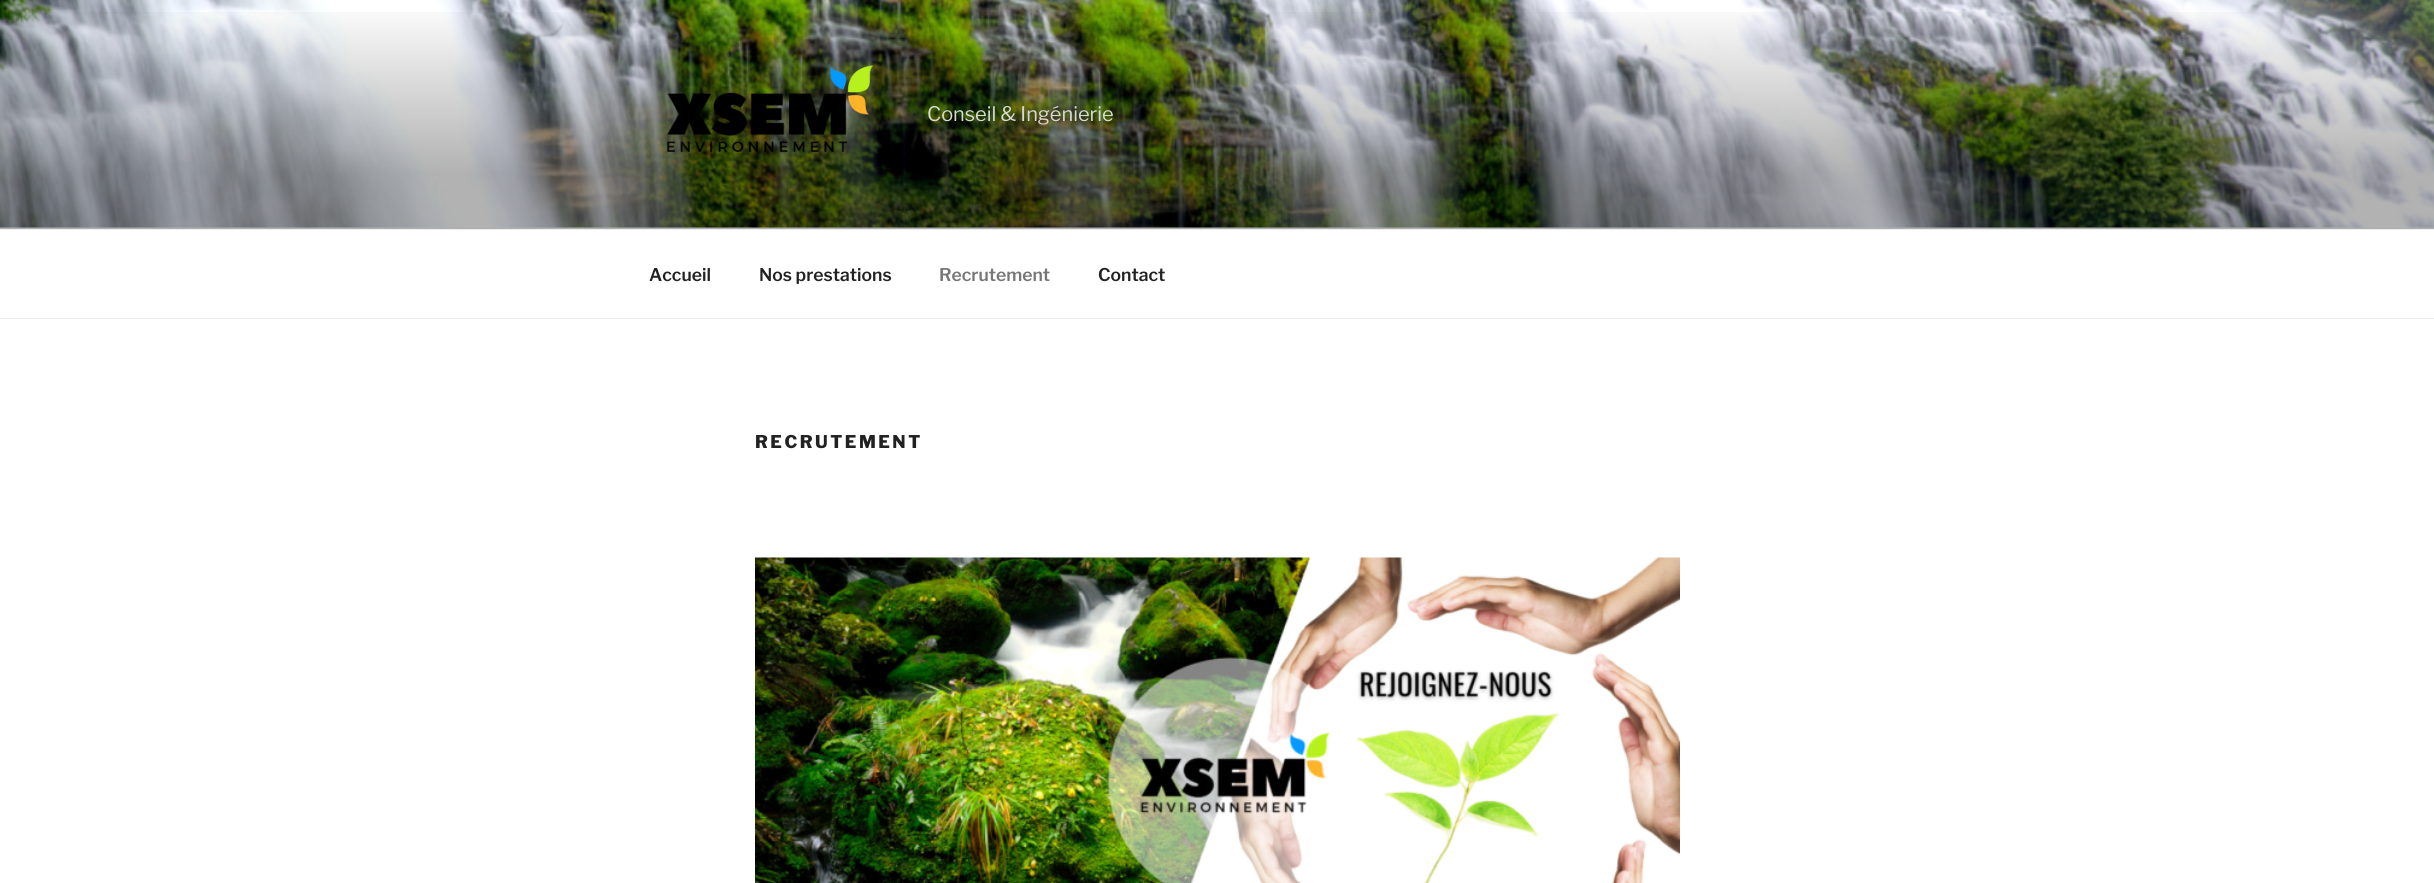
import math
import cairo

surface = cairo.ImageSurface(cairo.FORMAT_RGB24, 2434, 883)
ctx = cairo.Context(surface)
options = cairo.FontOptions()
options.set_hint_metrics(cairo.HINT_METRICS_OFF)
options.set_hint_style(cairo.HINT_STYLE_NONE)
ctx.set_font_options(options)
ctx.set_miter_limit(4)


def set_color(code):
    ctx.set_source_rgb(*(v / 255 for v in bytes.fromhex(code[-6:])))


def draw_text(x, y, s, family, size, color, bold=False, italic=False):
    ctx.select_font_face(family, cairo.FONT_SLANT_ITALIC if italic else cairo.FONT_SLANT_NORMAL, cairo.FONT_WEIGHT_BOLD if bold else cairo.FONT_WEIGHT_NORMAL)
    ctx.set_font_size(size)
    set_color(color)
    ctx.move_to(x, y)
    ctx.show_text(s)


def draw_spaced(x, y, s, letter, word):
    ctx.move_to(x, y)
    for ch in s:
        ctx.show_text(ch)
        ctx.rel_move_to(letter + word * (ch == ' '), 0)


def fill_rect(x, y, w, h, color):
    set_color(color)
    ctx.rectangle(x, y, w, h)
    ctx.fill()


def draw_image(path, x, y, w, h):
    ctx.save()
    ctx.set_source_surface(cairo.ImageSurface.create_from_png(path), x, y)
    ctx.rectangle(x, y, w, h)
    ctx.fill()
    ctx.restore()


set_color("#ffffff")
ctx.paint()
fill_rect(0, 227, 2434, 2, "#fafafa")
draw_image("assets/img1.png", 0, 0, 2434, 228)
gradient = cairo.LinearGradient(1218, 0, 1218, 229)
gradient.add_color_stop_rgba(0, 0, 0, 0, 0)
gradient.add_color_stop_rgba(0.75, 0, 0, 0, 0.3)
gradient.add_color_stop_rgba(1, 0, 0, 0, 0.3)
ctx.set_source(gradient)
ctx.rectangle(0, 12, 2434, 217)
ctx.fill()
draw_image("assets/img2.png", 667, 65, 206, 87)
draw_text(927, 121, "Conseil & Ingénierie", "Libre Franklin", 20, "#d7dad0")
fill_rect(0, 229, 2434, 1, "#eeeeee")
fill_rect(0, 318, 2434, 1, "#eeeeee")
draw_text(649, 281, "Accueil", "Libre Franklin SemiBold", 17.5, "#222222")
draw_text(759, 281, "Nos prestations", "Libre Franklin SemiBold", 17.5, "#222222")
draw_text(939, 281, "Recrutement", "Libre Franklin SemiBold", 17.5, "#767676")
draw_text(1098, 281, "Contact", "Libre Franklin SemiBold", 17.5, "#222222")
ctx.select_font_face("Libre Franklin ExtraBold")
draw_spaced(755, 448, "RECRUTEMENT", 2.5, 0)
draw_image("assets/img3.png", 755, 557, 925, 326)
surface.write_to_png("output.png")
